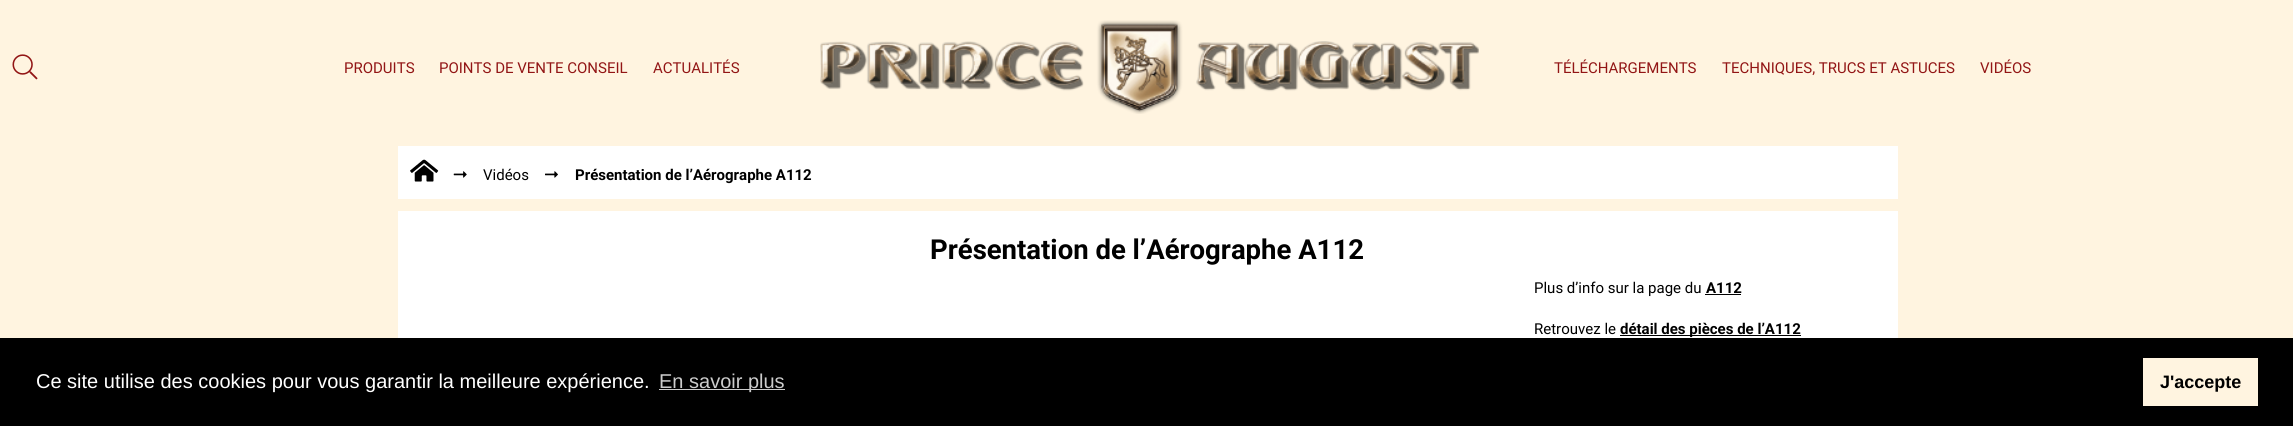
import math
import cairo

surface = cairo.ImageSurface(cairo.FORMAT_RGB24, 2293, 426)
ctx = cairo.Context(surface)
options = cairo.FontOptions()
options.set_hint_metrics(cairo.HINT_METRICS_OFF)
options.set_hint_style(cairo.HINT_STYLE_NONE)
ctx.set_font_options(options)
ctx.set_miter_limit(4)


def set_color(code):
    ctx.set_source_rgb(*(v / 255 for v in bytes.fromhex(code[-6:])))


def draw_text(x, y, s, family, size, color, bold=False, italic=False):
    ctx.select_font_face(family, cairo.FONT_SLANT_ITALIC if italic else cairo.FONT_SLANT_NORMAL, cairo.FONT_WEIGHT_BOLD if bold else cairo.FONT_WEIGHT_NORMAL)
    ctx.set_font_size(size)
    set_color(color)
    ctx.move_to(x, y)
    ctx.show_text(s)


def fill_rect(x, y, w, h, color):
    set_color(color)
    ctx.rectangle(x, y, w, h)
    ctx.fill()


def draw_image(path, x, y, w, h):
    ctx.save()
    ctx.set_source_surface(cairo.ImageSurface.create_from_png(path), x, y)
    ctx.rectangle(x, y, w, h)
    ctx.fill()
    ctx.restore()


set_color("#fff4e0")
ctx.paint()
draw_image("assets/img1.png", 12, 54, 26, 26)
draw_text(344, 73, "PRODUITS", "Roboto", 15, "#921515")
draw_text(439, 73, "POINTS DE VENTE CONSEIL", "Roboto", 15, "#921515")
draw_text(653, 73, "ACTUALITÉS", "Roboto", 15, "#921515")
draw_image("assets/img2.png", 820, 20, 659, 94)
draw_text(1554, 73, "TÉLÉCHARGEMENTS", "Roboto", 15, "#921515")
draw_text(1722, 73, "TECHNIQUES, TRUCS ET ASTUCES", "Roboto", 15, "#921515")
draw_text(1980, 73, "VIDÉOS", "Roboto", 15, "#921515")
fill_rect(398, 146, 1500, 53, "#ffffff")
draw_image("assets/img3.png", 410, 159, 29, 23)
draw_image("assets/img4.png", 453, 171, 14, 7)
draw_text(483, 180, "Vidéos", "Roboto", 15, "#000000")
draw_image("assets/img5.png", 545, 171, 13, 7)
draw_text(575, 180, "Présentation de l’Aérographe A112", "Roboto", 15, "#000000", bold=True)
fill_rect(398, 211, 1500, 127, "#ffffff")
draw_text(930, 259, "Présentation de l’Aérographe A112", "Roboto", 27.5, "#000000", bold=True)
draw_text(1534, 293, "Plus d’info sur la page du", "Roboto", 15, "#000000")
draw_text(1706, 293, "A112", "Roboto", 15, "#000000", bold=True)
fill_rect(1705, 294, 36, 1, "#000000")
draw_text(1534, 334, "Retrouvez le", "Roboto", 15, "#000000")
fill_rect(1620, 335, 181, 1, "#000000")
draw_text(1620, 334, "détail des pièces de l’A112", "Roboto", 15, "#000000", bold=True)
fill_rect(0, 338, 2293, 88, "#000000")
draw_text(36, 388, "Ce site utilise des cookies pour vous garantir la meilleure expérience.", "Liberation Sans", 20, "#ffffff")
fill_rect(659, 389, 126, 1, "#cccccc")
draw_text(659, 388, "En savoir plus", "Liberation Sans", 20, "#cccccc")
fill_rect(2143, 358, 115, 48, "#fff4e0")
draw_text(2160, 388, "J'accepte", "Liberation Sans", 18, "#000000", bold=True)
surface.write_to_png("output.png")
